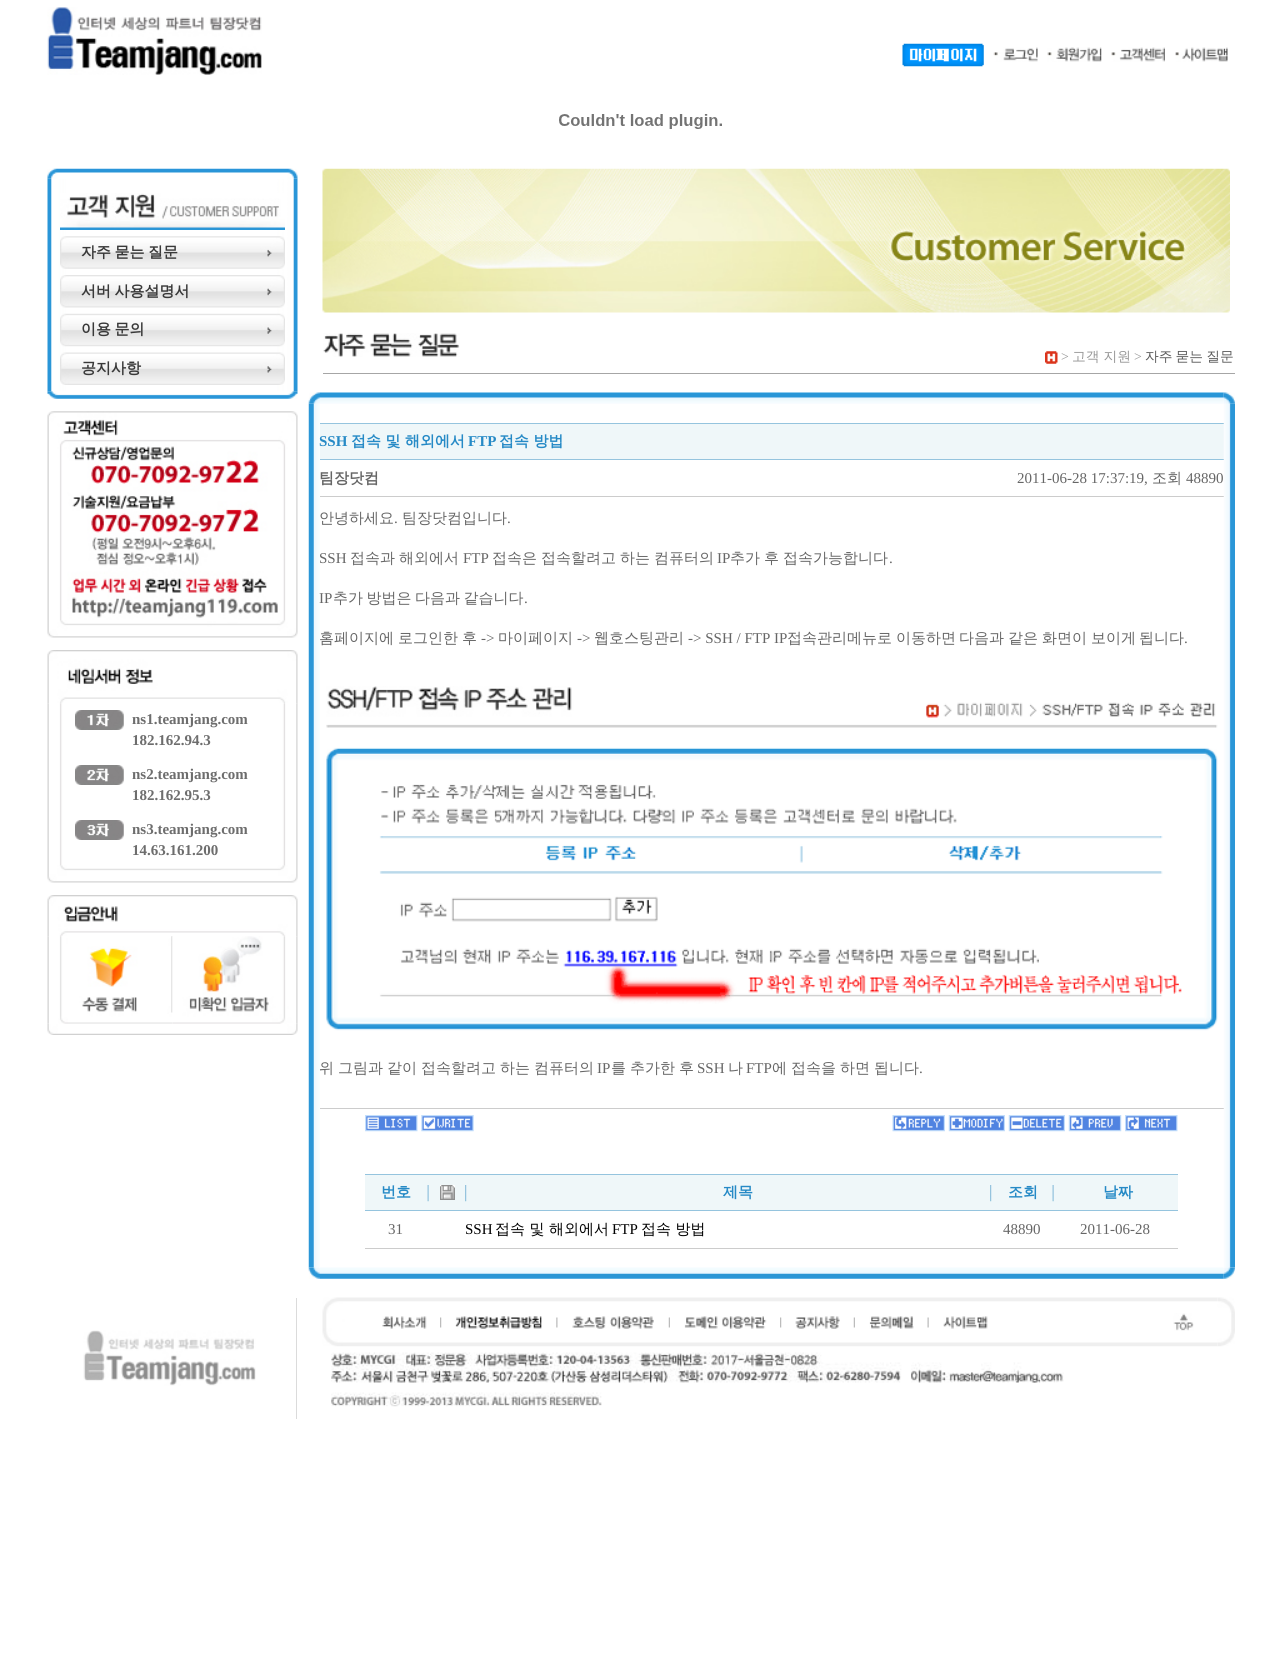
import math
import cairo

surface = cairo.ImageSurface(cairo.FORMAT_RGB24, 1281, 1678)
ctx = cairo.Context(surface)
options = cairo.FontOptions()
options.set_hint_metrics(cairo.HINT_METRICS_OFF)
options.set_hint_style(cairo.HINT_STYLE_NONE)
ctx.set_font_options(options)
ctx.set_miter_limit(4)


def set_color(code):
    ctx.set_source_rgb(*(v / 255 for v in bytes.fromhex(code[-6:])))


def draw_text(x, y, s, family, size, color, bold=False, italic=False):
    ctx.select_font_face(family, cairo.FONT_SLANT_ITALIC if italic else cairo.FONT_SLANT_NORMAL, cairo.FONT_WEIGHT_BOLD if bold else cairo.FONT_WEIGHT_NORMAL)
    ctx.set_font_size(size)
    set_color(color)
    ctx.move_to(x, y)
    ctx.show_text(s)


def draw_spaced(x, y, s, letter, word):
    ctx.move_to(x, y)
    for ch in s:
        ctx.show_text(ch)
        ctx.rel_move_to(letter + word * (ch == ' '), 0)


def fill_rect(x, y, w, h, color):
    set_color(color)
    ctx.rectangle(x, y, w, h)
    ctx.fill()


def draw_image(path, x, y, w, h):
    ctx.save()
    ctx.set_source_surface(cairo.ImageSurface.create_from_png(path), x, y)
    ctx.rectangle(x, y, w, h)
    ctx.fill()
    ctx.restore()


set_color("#ffffff")
ctx.paint()
draw_image("assets/img1.png", 47, 7, 215, 68)
draw_image("assets/img2.png", 902, 43, 82, 24)
draw_image("assets/img3.png", 993, 47, 45, 15)
draw_image("assets/img4.png", 1047, 47, 55, 15)
draw_image("assets/img5.png", 1111, 47, 54, 15)
draw_image("assets/img6.png", 1175, 47, 53, 15)
draw_image("assets/img7.png", 559, 114, 163, 15)
draw_image("assets/img9.png", 47, 178, 251, 214)
draw_image("assets/img8.png", 47, 168, 251, 11)
draw_image("assets/img10.png", 60, 193, 225, 37)
draw_image("assets/img11.png", 60, 236, 225, 33)
ctx.select_font_face("WenQuanYi Zen Hei", cairo.FONT_SLANT_NORMAL, cairo.FONT_WEIGHT_BOLD)
ctx.set_font_size(15)
set_color("#393939")
draw_spaced(81, 257, "자주 묻는 질문", 0, -1)
draw_image("assets/img12.png", 60, 275, 225, 33)
draw_spaced(81, 296, "서버 사용설명서", 0, -1)
draw_image("assets/img13.png", 60, 313, 225, 34)
draw_spaced(81, 334, "이용 문의", 0, -1)
draw_image("assets/img14.png", 60, 352, 225, 33)
draw_text(81, 373, "공지사항", "WenQuanYi Zen Hei", 15, "#393939", bold=True)
draw_image("assets/img15.png", 47, 391, 251, 8)
draw_image("assets/img16.png", 47, 411, 251, 209)
draw_image("assets/img17.png", 47, 620, 251, 18)
draw_image("assets/img19.png", 47, 703, 251, 162)
draw_image("assets/img18.png", 47, 650, 251, 54)
draw_image("assets/img20.png", 75, 710, 49, 20)
draw_text(132, 724, "ns1.teamjang.com", "Liberation Serif", 15, "#6d6d6d", bold=True)
draw_text(132, 745, "182.162.94.3", "Liberation Serif", 15, "#6d6d6d", bold=True)
draw_image("assets/img21.png", 75, 765, 49, 20)
draw_text(132, 779, "ns2.teamjang.com", "Liberation Serif", 15, "#6d6d6d", bold=True)
draw_text(132, 800, "182.162.95.3", "Liberation Serif", 15, "#6d6d6d", bold=True)
draw_image("assets/img22.png", 75, 820, 49, 20)
draw_text(132, 834, "ns3.teamjang.com", "Liberation Serif", 15, "#6d6d6d", bold=True)
draw_text(132, 855, "14.63.161.200", "Liberation Serif", 15, "#6d6d6d", bold=True)
draw_image("assets/img23.png", 47, 865, 251, 18)
draw_image("assets/img24.png", 47, 895, 251, 42)
draw_image("assets/img25.png", 47, 936, 126, 88)
draw_image("assets/img26.png", 172, 936, 126, 88)
draw_image("assets/img27.png", 47, 1023, 251, 12)
draw_image("assets/img28.png", 322, 168, 908, 145)
draw_image("assets/img29.png", 323, 333, 137, 24)
draw_image("assets/img30.png", 1045, 351, 13, 13)
draw_text(1061, 361, ">", "Liberation Serif", 13.75, "#969696")
draw_text(1072, 361, "고객 지원", "WenQuanYi Zen Hei Medium", 13.75, "#969696")
draw_text(1134, 361, ">", "Liberation Serif", 13.75, "#969696")
ctx.select_font_face("WenQuanYi Zen Hei Medium")
set_color("#595959")
draw_spaced(1145, 361, "자주 묻는 질문", 0, -1)
fill_rect(323, 373, 912, 1, "#a6a6a6")
draw_image("assets/img34.png", 308, 403, 12, 865)
draw_image("assets/img31.png", 308, 392, 12, 12)
draw_image("assets/img32.png", 320, 392, 904, 12)
fill_rect(320, 424, 904, 35, "#eff7f9")
fill_rect(320, 423, 904, 1, "#95c4de")
fill_rect(320, 459, 904, 1, "#95c4de")
fill_rect(320, 496, 904, 1, "#cccccc")
fill_rect(320, 1108, 904, 1, "#cccccc")
draw_image("assets/img46.png", 1223, 403, 12, 865)
draw_image("assets/img33.png", 1223, 392, 12, 12)
draw_text(319, 446, "SSH", "Liberation Serif", 15, "#268ac6", bold=True)
draw_text(351, 446, "접속 및 해외에서", "WenQuanYi Zen Hei", 15, "#268ac6", bold=True)
draw_text(468, 446, "FTP", "Liberation Serif", 15, "#268ac6", bold=True)
draw_text(499, 446, "접속 방법", "WenQuanYi Zen Hei", 15, "#268ac6", bold=True)
draw_text(319, 483, "팀장닷컴", "WenQuanYi Zen Hei", 15, "#666666", bold=True)
draw_text(1017, 483, "2011-06-28 17:37:19,", "Liberation Serif", 15, "#666666")
draw_text(1152, 483, "조회", "WenQuanYi Zen Hei Medium", 15, "#666666")
draw_text(1186, 483, "48890", "Liberation Serif", 15, "#666666")
draw_text(319, 523, "안녕하세요", "WenQuanYi Zen Hei Medium", 15, "#666666")
draw_text(394, 523, ".", "Liberation Serif", 15, "#666666")
draw_text(402, 523, "팀장닷컴입니다", "WenQuanYi Zen Hei Medium", 15, "#666666")
draw_text(507, 523, ".", "Liberation Serif", 15, "#666666")
draw_text(319, 563, "SSH", "Liberation Serif", 15, "#666666")
ctx.select_font_face("WenQuanYi Zen Hei Medium")
draw_spaced(350, 563, "접속과 해외에서", 0, -0.5)
draw_text(463, 563, "FTP", "Liberation Serif", 15, "#666666")
ctx.select_font_face("WenQuanYi Zen Hei Medium")
draw_spaced(492, 563, "접속은 접속할려고 하는 컴퓨터의", 0, -0.5)
draw_text(717, 563, "IP", "Liberation Serif", 15, "#666666")
ctx.select_font_face("WenQuanYi Zen Hei Medium")
draw_spaced(730, 563, "추가 후 접속가능합니다", 0, -0.5)
draw_text(889, 563, ".", "Liberation Serif", 15, "#666666")
draw_text(319, 603, "IP", "Liberation Serif", 15, "#666666")
ctx.select_font_face("WenQuanYi Zen Hei Medium")
draw_spaced(333, 603, "추가 방법은 다음과 같습니다", 0, -1)
draw_text(524, 603, ".", "Liberation Serif", 15, "#666666")
draw_text(319, 643, "홈페이지에", "WenQuanYi Zen Hei Medium", 15, "#666666")
draw_text(398, 643, "로그인한", "WenQuanYi Zen Hei Medium", 15, "#666666")
draw_text(462, 643, "후", "WenQuanYi Zen Hei Medium", 15, "#666666")
draw_text(481, 643, "->", "Liberation Serif", 15, "#666666")
draw_text(498, 643, "마이페이지", "WenQuanYi Zen Hei Medium", 15, "#666666")
draw_text(577, 643, "->", "Liberation Serif", 15, "#666666")
draw_text(594, 643, "웹호스팅관리", "WenQuanYi Zen Hei Medium", 15, "#666666")
draw_text(688, 643, "-> SSH / FTP IP", "Liberation Serif", 15, "#666666")
draw_text(787, 643, "접속관리메뉴로", "WenQuanYi Zen Hei Medium", 15, "#666666")
draw_text(896, 643, "이동하면", "WenQuanYi Zen Hei Medium", 15, "#666666")
draw_text(959, 643, "다음과", "WenQuanYi Zen Hei Medium", 15, "#666666")
draw_text(1008, 643, "같은", "WenQuanYi Zen Hei Medium", 15, "#666666")
draw_text(1042, 643, "화면이", "WenQuanYi Zen Hei Medium", 15, "#666666")
draw_text(1091, 643, "보이게", "WenQuanYi Zen Hei Medium", 15, "#666666")
draw_text(1139, 643, "됩니다", "WenQuanYi Zen Hei Medium", 15, "#666666")
draw_text(1184, 643, ".", "Liberation Serif", 15, "#666666")
draw_image("assets/img35.png", 326, 686, 892, 345)
ctx.select_font_face("WenQuanYi Zen Hei Medium")
draw_spaced(319, 1073, "위 그림과 같이 접속할려고 하는 컴퓨터의", 0, -0.5)
draw_text(597, 1073, "IP", "Liberation Serif", 15, "#666666")
ctx.select_font_face("WenQuanYi Zen Hei Medium")
draw_spaced(611, 1073, "를 추가한 후", 0, -0.5)
draw_text(697, 1073, "SSH", "Liberation Serif", 15, "#666666")
draw_text(728, 1073, "나", "WenQuanYi Zen Hei Medium", 15, "#666666")
draw_text(746, 1073, "FTP", "Liberation Serif", 15, "#666666")
ctx.select_font_face("WenQuanYi Zen Hei Medium")
draw_spaced(772, 1073, "에 접속을 하면 됩니다", 0, -0.5)
draw_text(919, 1073, ".", "Liberation Serif", 15, "#666666")
draw_image("assets/img36.png", 365, 1115, 53, 17)
draw_image("assets/img37.png", 421, 1115, 53, 17)
draw_image("assets/img38.png", 892, 1115, 53, 17)
draw_image("assets/img39.png", 948, 1115, 57, 17)
draw_image("assets/img40.png", 1008, 1115, 57, 17)
draw_image("assets/img41.png", 1068, 1115, 54, 17)
draw_image("assets/img42.png", 1125, 1115, 53, 17)
fill_rect(365, 1175, 813, 35, "#eff7f9")
fill_rect(365, 1174, 813, 1, "#95c4de")
fill_rect(365, 1210, 813, 1, "#95c4de")
draw_text(381, 1197, "번호", "WenQuanYi Zen Hei", 15, "#268ac6", bold=True)
draw_image("assets/img43.png", 427, 1185, 2, 17)
draw_image("assets/img44.png", 440, 1185, 15, 15)
draw_image("assets/img45.png", 465, 1185, 2, 17)
draw_text(723, 1197, "제목", "WenQuanYi Zen Hei", 15, "#268ac6", bold=True)
draw_image("assets/img45.png", 990, 1185, 2, 17)
draw_text(1008, 1197, "조회", "WenQuanYi Zen Hei", 15, "#268ac6", bold=True)
draw_image("assets/img43.png", 1052, 1185, 2, 17)
draw_text(1103, 1197, "날짜", "WenQuanYi Zen Hei", 15, "#268ac6", bold=True)
fill_rect(365, 1248, 813, 1, "#cccccc")
draw_text(388, 1234, "31", "Liberation Serif", 15, "#666666")
draw_text(465, 1234, "SSH", "Liberation Serif", 15, "#000000")
draw_text(495, 1234, "접속 및 해외에서", "WenQuanYi Zen Hei Medium", 15, "#000000")
draw_text(612, 1234, "FTP", "Liberation Serif", 15, "#000000")
draw_text(641, 1234, "접속 방법", "WenQuanYi Zen Hei Medium", 15, "#000000")
draw_text(1003, 1234, "48890", "Liberation Serif", 15, "#666666")
draw_text(1080, 1234, "2011-06-28", "Liberation Serif", 15, "#666666")
draw_image("assets/img47.png", 308, 1267, 12, 12)
draw_image("assets/img48.png", 320, 1267, 904, 12)
draw_image("assets/img49.png", 1223, 1267, 12, 12)
draw_image("assets/img50.png", 83, 1330, 173, 56)
fill_rect(296, 1298, 1, 121, "#dbdbdb")
draw_image("assets/img51.png", 322, 1297, 23, 50)
draw_image("assets/img52.png", 345, 1297, 873, 50)
draw_image("assets/img53.png", 382, 1316, 45, 13)
draw_image("assets/img54.png", 440, 1317, 2, 11)
draw_image("assets/img55.png", 455, 1316, 87, 13)
draw_image("assets/img56.png", 556, 1317, 2, 11)
draw_image("assets/img57.png", 572, 1316, 82, 13)
draw_image("assets/img58.png", 668, 1317, 2, 11)
draw_image("assets/img59.png", 684, 1316, 83, 13)
draw_image("assets/img54.png", 780, 1317, 2, 11)
draw_image("assets/img60.png", 795, 1316, 45, 13)
draw_image("assets/img58.png", 853, 1317, 2, 11)
draw_image("assets/img61.png", 869, 1316, 45, 13)
draw_image("assets/img62.png", 927, 1317, 2, 11)
draw_image("assets/img63.png", 943, 1316, 45, 13)
draw_image("assets/img64.png", 1173, 1313, 21, 18)
draw_image("assets/img65.png", 1217, 1297, 18, 50)
draw_image("assets/img66.png", 331, 1352, 733, 55)
surface.write_to_png("output.png")
